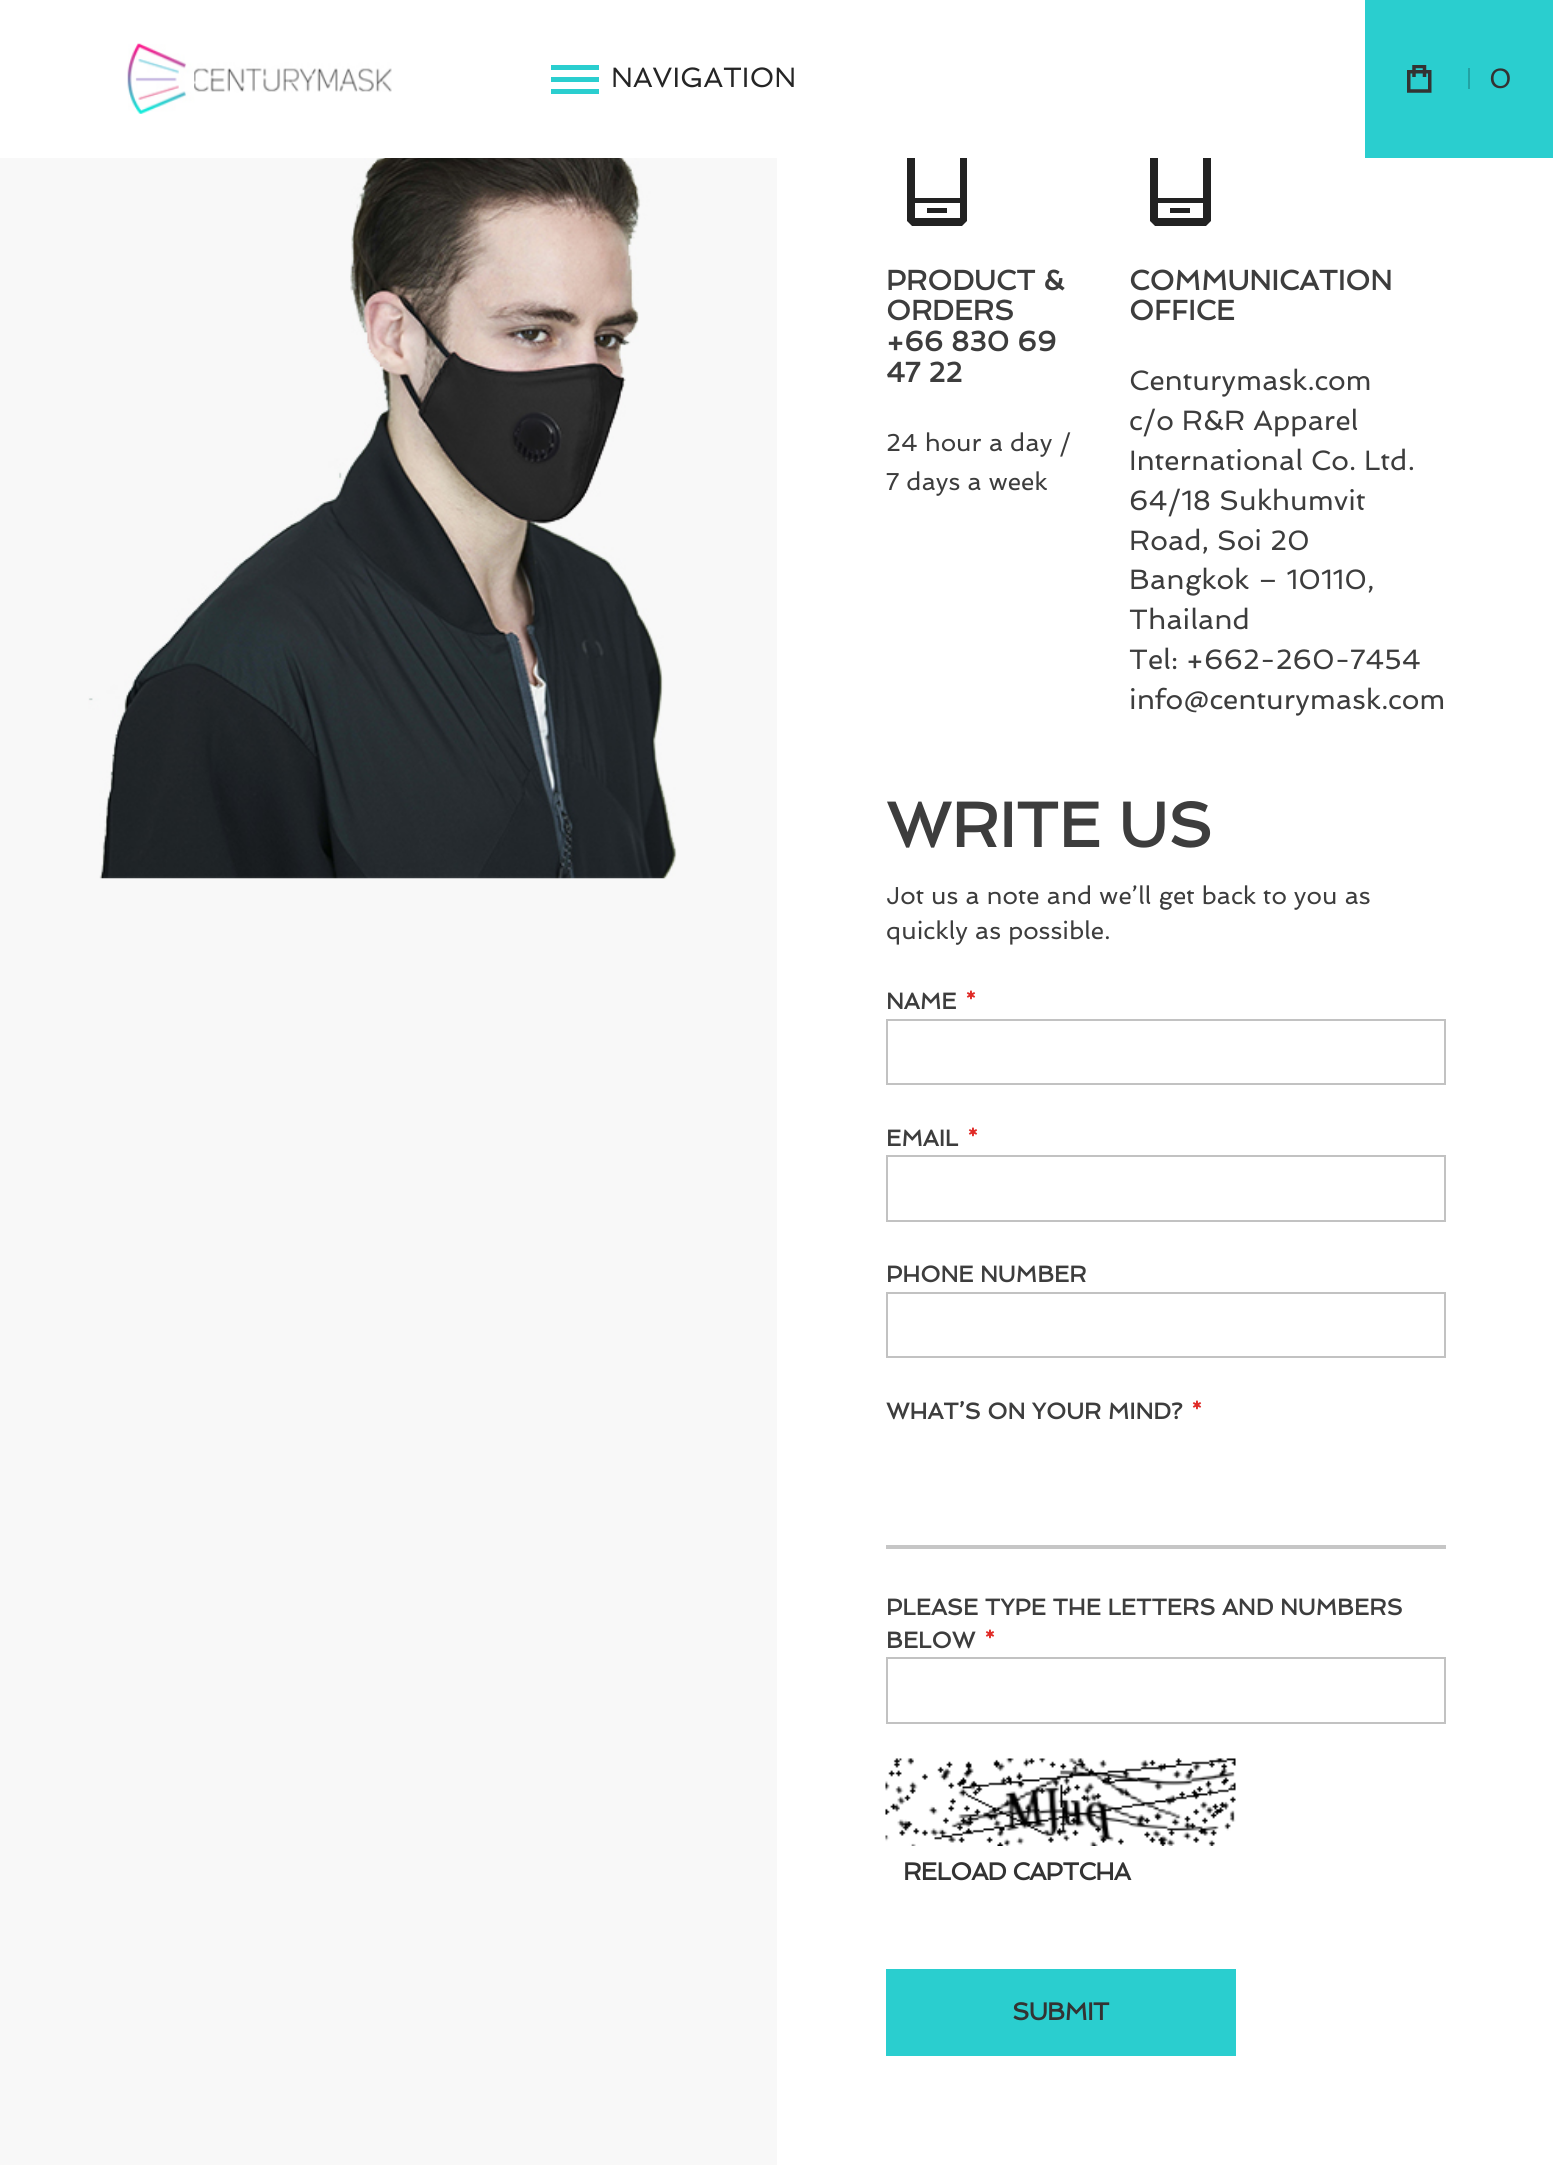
import math
import cairo

surface = cairo.ImageSurface(cairo.FORMAT_RGB24, 1553, 2176)
ctx = cairo.Context(surface)
options = cairo.FontOptions()
options.set_hint_metrics(cairo.HINT_METRICS_OFF)
options.set_hint_style(cairo.HINT_STYLE_NONE)
ctx.set_font_options(options)
ctx.set_miter_limit(4)


def set_color(code):
    ctx.set_source_rgb(*(v / 255 for v in bytes.fromhex(code[-6:])))


def draw_text(x, y, s, family, size, color, bold=False, italic=False):
    ctx.select_font_face(family, cairo.FONT_SLANT_ITALIC if italic else cairo.FONT_SLANT_NORMAL, cairo.FONT_WEIGHT_BOLD if bold else cairo.FONT_WEIGHT_NORMAL)
    ctx.set_font_size(size)
    set_color(color)
    ctx.move_to(x, y)
    ctx.show_text(s)


def draw_spaced(x, y, s, letter, word):
    ctx.move_to(x, y)
    for ch in s:
        ctx.show_text(ch)
        ctx.rel_move_to(letter + word * (ch == ' '), 0)


def fill_rect(x, y, w, h, color):
    set_color(color)
    ctx.rectangle(x, y, w, h)
    ctx.fill()


def draw_image(path, x, y, w, h):
    ctx.save()
    ctx.set_source_surface(cairo.ImageSurface.create_from_png(path), x, y)
    ctx.rectangle(x, y, w, h)
    ctx.fill()
    ctx.restore()


set_color("#ffffff")
ctx.paint()
set_color("#222222")
ctx.new_path()
ctx.move_to(962, 122)
ctx.line_to(967, 128)
ctx.line_to(967, 221)
ctx.line_to(962, 226)
ctx.line_to(912, 226)
ctx.line_to(907, 221)
ctx.line_to(907, 128)
ctx.line_to(912, 122)
ctx.close_path()
ctx.move_to(915, 130)
ctx.line_to(915, 131)
ctx.line_to(915, 145)
ctx.line_to(960, 145)
ctx.line_to(960, 131)
ctx.line_to(959, 130)
ctx.close_path()
ctx.move_to(960, 218)
ctx.line_to(960, 203)
ctx.line_to(915, 203)
ctx.line_to(915, 218)
ctx.line_to(959, 218)
ctx.close_path()
ctx.move_to(915, 198)
ctx.line_to(960, 198)
ctx.line_to(960, 150)
ctx.line_to(915, 150)
ctx.close_path()
ctx.move_to(927, 208)
ctx.line_to(927, 213)
ctx.line_to(947, 213)
ctx.line_to(947, 208)
ctx.close_path()
ctx.move_to(935, 135)
ctx.line_to(935, 140)
ctx.line_to(940, 140)
ctx.line_to(940, 135)
ctx.close_path()
ctx.fill()
ctx.new_path()
ctx.move_to(1206, 122)
ctx.line_to(1211, 128)
ctx.line_to(1211, 221)
ctx.line_to(1206, 226)
ctx.line_to(1155, 226)
ctx.line_to(1150, 221)
ctx.line_to(1150, 128)
ctx.line_to(1155, 122)
ctx.close_path()
ctx.move_to(1158, 130)
ctx.line_to(1158, 131)
ctx.line_to(1158, 145)
ctx.line_to(1203, 145)
ctx.line_to(1203, 131)
ctx.line_to(1203, 130)
ctx.close_path()
ctx.move_to(1203, 218)
ctx.line_to(1203, 203)
ctx.line_to(1158, 203)
ctx.line_to(1158, 218)
ctx.close_path()
ctx.move_to(1158, 198)
ctx.line_to(1203, 198)
ctx.line_to(1203, 150)
ctx.line_to(1158, 150)
ctx.close_path()
ctx.move_to(1170, 208)
ctx.line_to(1170, 213)
ctx.line_to(1190, 213)
ctx.line_to(1190, 208)
ctx.close_path()
ctx.move_to(1178, 135)
ctx.line_to(1178, 140)
ctx.line_to(1183, 140)
ctx.line_to(1183, 135)
ctx.close_path()
ctx.fill()
fill_rect(907, 122, 304, 36, "#ffffff")
draw_image("assets/img1.png", 127, 43, 265, 71)
fill_rect(551, 65, 48, 5, "#2acecf")
fill_rect(551, 77, 48, 5, "#2acecf")
fill_rect(551, 89, 48, 5, "#2acecf")
draw_text(611, 87, "NAVIGATION", "Spinnaker", 28, "#252525")
fill_rect(1365, 0, 188, 158, "#2acecf")
draw_image("assets/img2.png", 1407, 65, 25, 28)
fill_rect(1468, 68, 2, 21, "#21a3a4")
draw_text(1489, 88, "0", "Spinnaker", 28, "#333333")
fill_rect(0, 158, 777, 2007, "#f8f8f8")
draw_image("assets/img3.png", 88, 158, 589, 721)
draw_text(886, 290, "PRODUCT &", "Spinnaker", 28, "#3d3d3d", bold=True)
draw_text(886, 320, "ORDERS", "Spinnaker", 28, "#3d3d3d", bold=True)
draw_text(886, 351, "+66 830 69", "Spinnaker", 28, "#3d3d3d", bold=True)
draw_text(886, 382, "47 22", "Spinnaker", 28, "#3d3d3d", bold=True)
draw_text(886, 451, "24 hour a day /", "Spinnaker", 24.5, "#3d3d3d")
draw_text(886, 490, "7 days a week", "Spinnaker", 24.5, "#3d3d3d")
draw_text(1129, 290, "COMMUNICATION", "Spinnaker", 28, "#3d3d3d", bold=True)
draw_text(1129, 320, "OFFICE", "Spinnaker", 28, "#3d3d3d", bold=True)
draw_text(1129, 390, "Centurymask.com", "Spinnaker", 28, "#3d3d3d")
draw_text(1129, 430, "c/o R&R Apparel", "Spinnaker", 28, "#3d3d3d")
draw_text(1129, 470, "International Co. Ltd.", "Spinnaker", 28, "#3d3d3d")
draw_text(1129, 510, "64/18 Sukhumvit", "Spinnaker", 28, "#3d3d3d")
draw_text(1129, 550, "Road, Soi 20", "Spinnaker", 28, "#3d3d3d")
draw_text(1129, 589, "Bangkok – 10110,", "Spinnaker", 28, "#3d3d3d")
draw_text(1129, 629, "Thailand", "Spinnaker", 28, "#3d3d3d")
draw_text(1129, 669, "Tel: +662-260-7454", "Spinnaker", 28, "#3d3d3d")
draw_text(1129, 709, "info@centurymask.com", "Spinnaker", 28, "#3d3d3d")
draw_text(886, 847, "WRITE US", "Spinnaker", 63, "#3d3d3d", bold=True)
draw_text(886, 904, "Jot us a note and we’ll get back to you as", "Spinnaker", 24.5, "#3d3d3d")
draw_text(886, 939, "quickly as possible.", "Spinnaker", 24.5, "#3d3d3d")
draw_text(886, 1009, "NAME", "Spinnaker", 22.75, "#3d3d3d", bold=True)
draw_text(965, 1009, "*", "Spinnaker", 21, "#e02b27", bold=True)
ctx.rectangle(887, 1020, 558, 64)
set_color("#c2c2c2")
ctx.stroke()
draw_text(886, 1146, "EMAIL", "Spinnaker", 22.75, "#3d3d3d", bold=True)
draw_text(967, 1146, "*", "Spinnaker", 21, "#e02b27", bold=True)
ctx.rectangle(887, 1156, 558, 65)
set_color("#c2c2c2")
ctx.stroke()
draw_text(886, 1282, "PHONE NUMBER", "Spinnaker", 22.75, "#3d3d3d", bold=True)
ctx.rectangle(887, 1293, 558, 64)
set_color("#c2c2c2")
ctx.stroke()
draw_text(886, 1419, "WHAT’S ON YOUR MIND?", "Spinnaker", 22.75, "#3d3d3d", bold=True)
draw_text(1191, 1419, "*", "Spinnaker", 21, "#e02b27", bold=True)
fill_rect(886, 1545, 560, 4, "#c6c6c6")
draw_text(886, 1615, "PLEASE TYPE THE LETTERS AND NUMBERS", "Spinnaker", 22.75, "#3d3d3d", bold=True)
draw_text(886, 1648, "BELOW", "Spinnaker", 22.75, "#3d3d3d", bold=True)
draw_text(984, 1648, "*", "Spinnaker", 21, "#e02b27", bold=True)
ctx.rectangle(887, 1658, 558, 65)
set_color("#c2c2c2")
ctx.stroke()
draw_image("assets/img4.png", 885, 1758, 351, 88)
ctx.set_font_size(24.5)
set_color("#333333")
draw_spaced(903, 1880, "RELOAD CAPTCHA", -0.75, 0)
fill_rect(886, 1969, 350, 87, "#2acecf")
set_color("#333333")
draw_spaced(1012, 2020, "SUBMIT", -0.75, 0)
surface.write_to_png("output.png")
